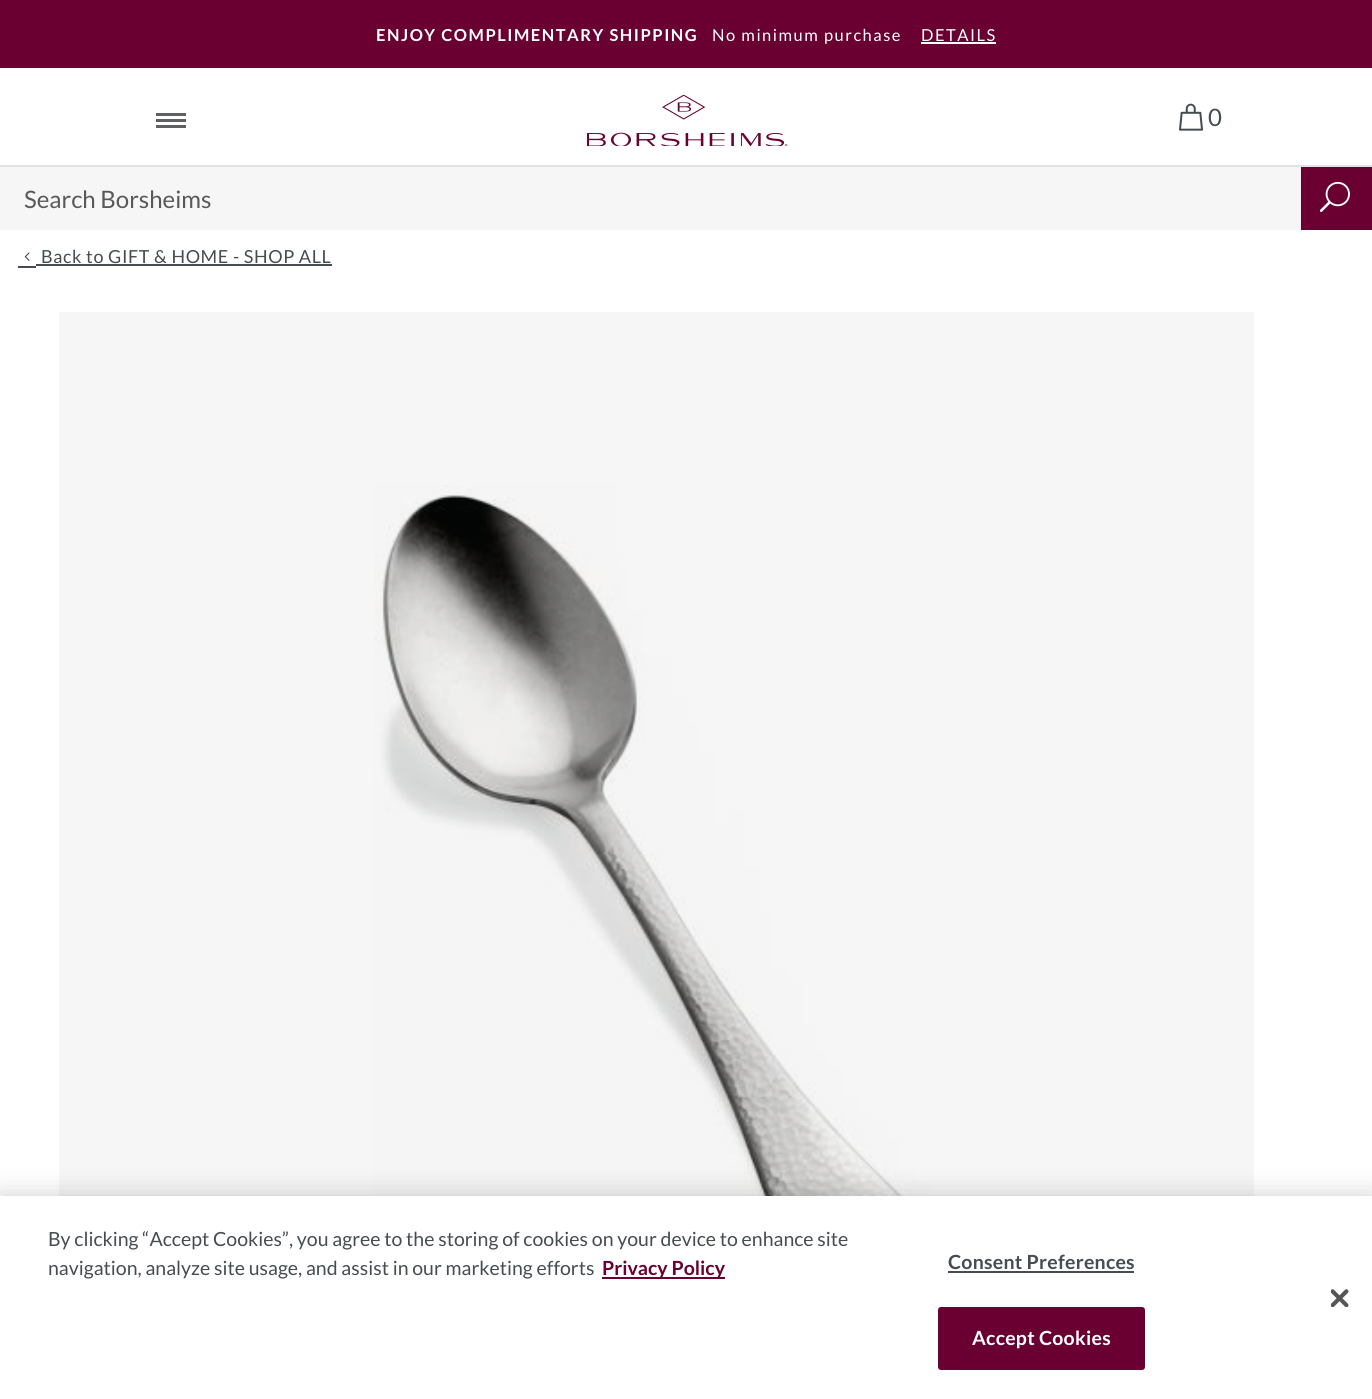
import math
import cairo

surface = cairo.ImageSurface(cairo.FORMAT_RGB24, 1372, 1399)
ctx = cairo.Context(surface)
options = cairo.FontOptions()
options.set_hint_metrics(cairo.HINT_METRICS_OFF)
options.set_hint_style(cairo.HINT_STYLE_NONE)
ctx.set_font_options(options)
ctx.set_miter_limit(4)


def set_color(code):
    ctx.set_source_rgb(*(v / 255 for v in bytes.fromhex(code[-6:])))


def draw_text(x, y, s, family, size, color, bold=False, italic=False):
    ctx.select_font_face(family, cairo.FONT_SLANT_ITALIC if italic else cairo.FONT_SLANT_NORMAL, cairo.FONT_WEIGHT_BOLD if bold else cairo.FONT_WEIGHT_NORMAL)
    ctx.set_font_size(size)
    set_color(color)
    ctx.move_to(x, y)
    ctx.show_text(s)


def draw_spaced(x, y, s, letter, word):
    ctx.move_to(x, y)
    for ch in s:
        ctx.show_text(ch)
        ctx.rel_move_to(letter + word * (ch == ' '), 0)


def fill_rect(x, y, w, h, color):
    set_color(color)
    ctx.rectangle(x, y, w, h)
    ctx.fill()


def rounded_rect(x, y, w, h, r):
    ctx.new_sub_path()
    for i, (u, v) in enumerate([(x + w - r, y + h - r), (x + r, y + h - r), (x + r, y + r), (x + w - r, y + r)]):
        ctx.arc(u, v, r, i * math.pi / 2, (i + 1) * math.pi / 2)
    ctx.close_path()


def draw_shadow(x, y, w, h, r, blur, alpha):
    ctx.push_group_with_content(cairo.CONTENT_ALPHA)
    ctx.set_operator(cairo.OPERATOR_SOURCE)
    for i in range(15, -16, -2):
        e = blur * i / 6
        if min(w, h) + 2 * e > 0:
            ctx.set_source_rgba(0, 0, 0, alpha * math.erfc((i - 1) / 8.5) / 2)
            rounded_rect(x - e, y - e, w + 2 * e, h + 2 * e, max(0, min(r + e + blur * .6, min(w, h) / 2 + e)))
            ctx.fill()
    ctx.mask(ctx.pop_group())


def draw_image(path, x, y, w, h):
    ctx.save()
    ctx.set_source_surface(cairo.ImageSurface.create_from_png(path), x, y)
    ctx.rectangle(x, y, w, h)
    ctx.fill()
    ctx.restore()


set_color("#ffffff")
ctx.paint()
fill_rect(59, 312, 1195, 884, "#f6f6f6")
fill_rect(0, 0, 1372, 68, "#690031")
ctx.select_font_face("Lato", cairo.FONT_SLANT_NORMAL, cairo.FONT_WEIGHT_BOLD)
ctx.set_font_size(16.5)
set_color("#ffffff")
draw_spaced(376, 41, "ENJOY COMPLIMENTARY SHIPPING", 1.5, 0)
ctx.select_font_face("Lato")
draw_spaced(712, 41, "No minimum purchase", 1.5, 0)
draw_spaced(921, 41, "DETAILS", 1.5, 0)
fill_rect(921, 42, 75, 2, "#ffffff")
fill_rect(156, 113, 30, 3, "#5f6062")
fill_rect(156, 119, 30, 3, "#5f6062")
fill_rect(156, 125, 30, 3, "#5f6062")
draw_image("assets/img1.png", 587, 95, 201, 51)
draw_image("assets/img2.png", 1179, 103, 24, 28)
draw_text(1208, 126, "0", "Lato", 24, "#454d51")
fill_rect(0, 167, 1301, 63, "#f6f6f6")
fill_rect(0, 165, 1372, 2, "#e2e2e2")
draw_text(24, 208, "Search Borsheims", "Lato", 24, "#595959")
fill_rect(1301, 167, 71, 63, "#690031")
draw_image("assets/img3.png", 1319, 181, 31, 31)
draw_image("assets/img4.png", 24, 252, 6, 9)
ctx.set_font_size(18)
set_color("#454d51")
draw_spaced(41, 263, "Back to GIFT & HOME - SHOP ALL", 0.6, 0)
fill_rect(36, 264, 296, 2, "#454d51")
fill_rect(18, 266, 18, 2, "#454d51")
draw_image("assets/img5.png", 373, 485, 585, 711)
set_color("#000000")
draw_shadow(0, 1196, 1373, 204, 0, 13.5, 0.2)
fill_rect(0, 1196, 1372, 203, "#ffffff")
draw_text(48, 1246, "By clicking “Accept Cookies”, you agree to the storing of cookies on your device to enhance site", "Lato", 19.5, "#454d51")
draw_text(48, 1275, "navigation, analyze site usage, and assist in our marketing efforts", "Lato", 19.5, "#454d51")
fill_rect(602, 1277, 123, 2, "#690031")
draw_text(602, 1275, "Privacy Policy", "Lato", 19.5, "#690031", bold=True)
set_color("#454d51")
draw_spaced(948, 1269, "Consent Preferences", 0.25, 0)
fill_rect(948, 1271, 186, 2, "#454d51")
set_color("#690031")
rounded_rect(939, 1308, 205, 61, 2)
ctx.fill_preserve()
ctx.stroke()
set_color("#ffffff")
draw_spaced(972, 1345, "Accept Cookies", 0.25, 0)
draw_image("assets/img6.png", 1331, 1289, 18, 18)
surface.write_to_png("output.png")
